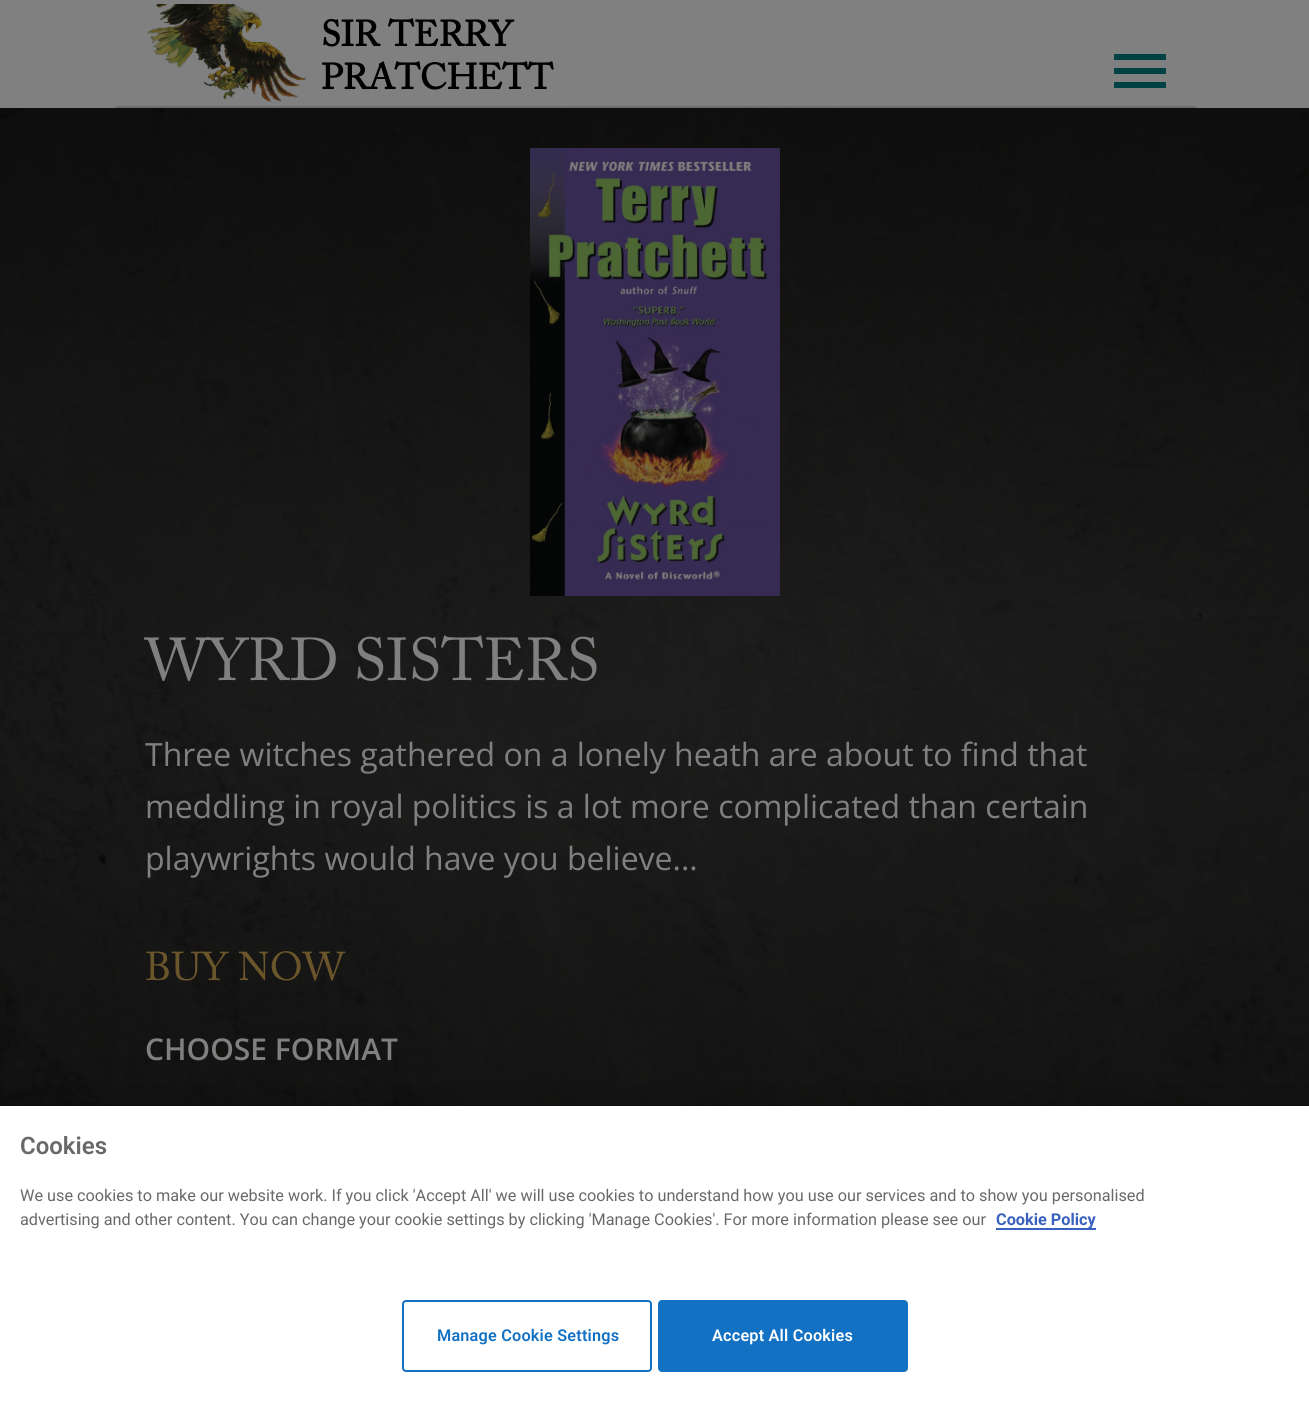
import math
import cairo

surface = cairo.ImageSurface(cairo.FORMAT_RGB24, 1309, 1411)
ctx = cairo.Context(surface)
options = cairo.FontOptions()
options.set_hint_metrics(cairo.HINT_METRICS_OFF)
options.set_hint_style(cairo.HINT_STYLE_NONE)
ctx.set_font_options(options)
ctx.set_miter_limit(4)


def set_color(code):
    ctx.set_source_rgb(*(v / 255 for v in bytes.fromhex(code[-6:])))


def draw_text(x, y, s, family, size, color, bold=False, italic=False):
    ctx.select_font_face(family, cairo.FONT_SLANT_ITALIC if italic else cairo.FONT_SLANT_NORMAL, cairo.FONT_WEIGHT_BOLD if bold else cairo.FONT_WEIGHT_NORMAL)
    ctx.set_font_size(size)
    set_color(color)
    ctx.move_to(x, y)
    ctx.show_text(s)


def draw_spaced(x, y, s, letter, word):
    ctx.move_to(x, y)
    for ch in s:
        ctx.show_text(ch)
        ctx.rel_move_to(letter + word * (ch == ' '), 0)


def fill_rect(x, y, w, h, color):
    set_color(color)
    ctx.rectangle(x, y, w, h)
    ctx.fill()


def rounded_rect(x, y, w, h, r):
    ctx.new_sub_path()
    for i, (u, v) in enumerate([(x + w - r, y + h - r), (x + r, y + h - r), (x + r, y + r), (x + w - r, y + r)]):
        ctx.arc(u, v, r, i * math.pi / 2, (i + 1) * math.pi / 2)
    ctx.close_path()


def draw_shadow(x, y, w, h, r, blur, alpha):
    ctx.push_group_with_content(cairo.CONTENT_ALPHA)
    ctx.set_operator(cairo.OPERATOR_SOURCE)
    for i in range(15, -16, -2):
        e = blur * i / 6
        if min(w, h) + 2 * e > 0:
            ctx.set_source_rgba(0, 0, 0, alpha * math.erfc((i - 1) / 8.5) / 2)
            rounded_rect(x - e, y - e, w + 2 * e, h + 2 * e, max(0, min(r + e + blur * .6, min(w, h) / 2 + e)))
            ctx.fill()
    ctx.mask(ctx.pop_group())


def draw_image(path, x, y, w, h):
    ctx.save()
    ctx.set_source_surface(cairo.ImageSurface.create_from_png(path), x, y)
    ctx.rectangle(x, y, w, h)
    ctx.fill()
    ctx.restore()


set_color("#808080")
ctx.paint()
fill_rect(116, 106, 1080, 2, "#6c6c6c")
draw_image("assets/img1.png", 147, 4, 159, 98)
draw_text(321, 46, "SIR TERRY", "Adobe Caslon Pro", 36, "#000000", bold=True)
draw_text(321, 89, "PRATCHETT", "Adobe Caslon Pro", 36, "#000000", bold=True)
fill_rect(1114, 54, 52, 6, "#004244")
fill_rect(1114, 68, 52, 6, "#004244")
fill_rect(1114, 82, 52, 6, "#004244")
draw_image("assets/img2.png", 0, 108, 1309, 998)
draw_image("assets/img3.png", 530, 148, 250, 448)
draw_text(145, 680, "WYRD SISTERS", "Adobe Caslon Pro", 60, "#808080")
draw_text(145, 766, "Three witches gathered on a lonely heath are about to find that", "Open Sans", 32, "#808080")
draw_text(145, 818, "meddling in royal politics is a lot more complicated than certain", "Open Sans", 32, "#808080")
draw_text(145, 870, "playwrights would have you believe...", "Open Sans", 32, "#808080")
draw_text(145, 980, "BUY NOW", "Adobe Caslon Pro", 40, "#6b552a")
draw_text(145, 1060, "CHOOSE FORMAT", "Open Sans SemiBold", 30, "#808080")
set_color("#000000")
draw_shadow(0, 1106, 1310, 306, 0, 18, 0.2)
fill_rect(0, 1106, 1309, 305, "#ffffff")
draw_text(20, 1154, "Cookies", "Roboto SemiBold", 24, "#696969")
draw_text(20, 1201, "We use cookies to make our website work. If you click 'Accept All' we will use cookies to understand how you use our services and to show you personalised", "Roboto", 16.25, "#696969")
draw_text(20, 1225, "advertising and other content. You can change your cookie settings by clicking 'Manage Cookies'. For more information please see our", "Roboto", 16.25, "#696969")
fill_rect(996, 1228, 100, 2, "#3860be")
draw_text(996, 1225, "Cookie Policy", "Roboto", 16.25, "#3860be", bold=True)
rounded_rect(403, 1301, 248, 70, 3)
set_color("#1371c3")
ctx.stroke()
ctx.select_font_face("Roboto SemiBold")
draw_spaced(437, 1341, "Manage Cookie Settings", 0.2, 0)
rounded_rect(659, 1301, 248, 70, 3)
ctx.fill_preserve()
ctx.stroke()
set_color("#ffffff")
draw_spaced(712, 1341, "Accept All Cookies", 0.2, 0)
surface.write_to_png("output.png")
